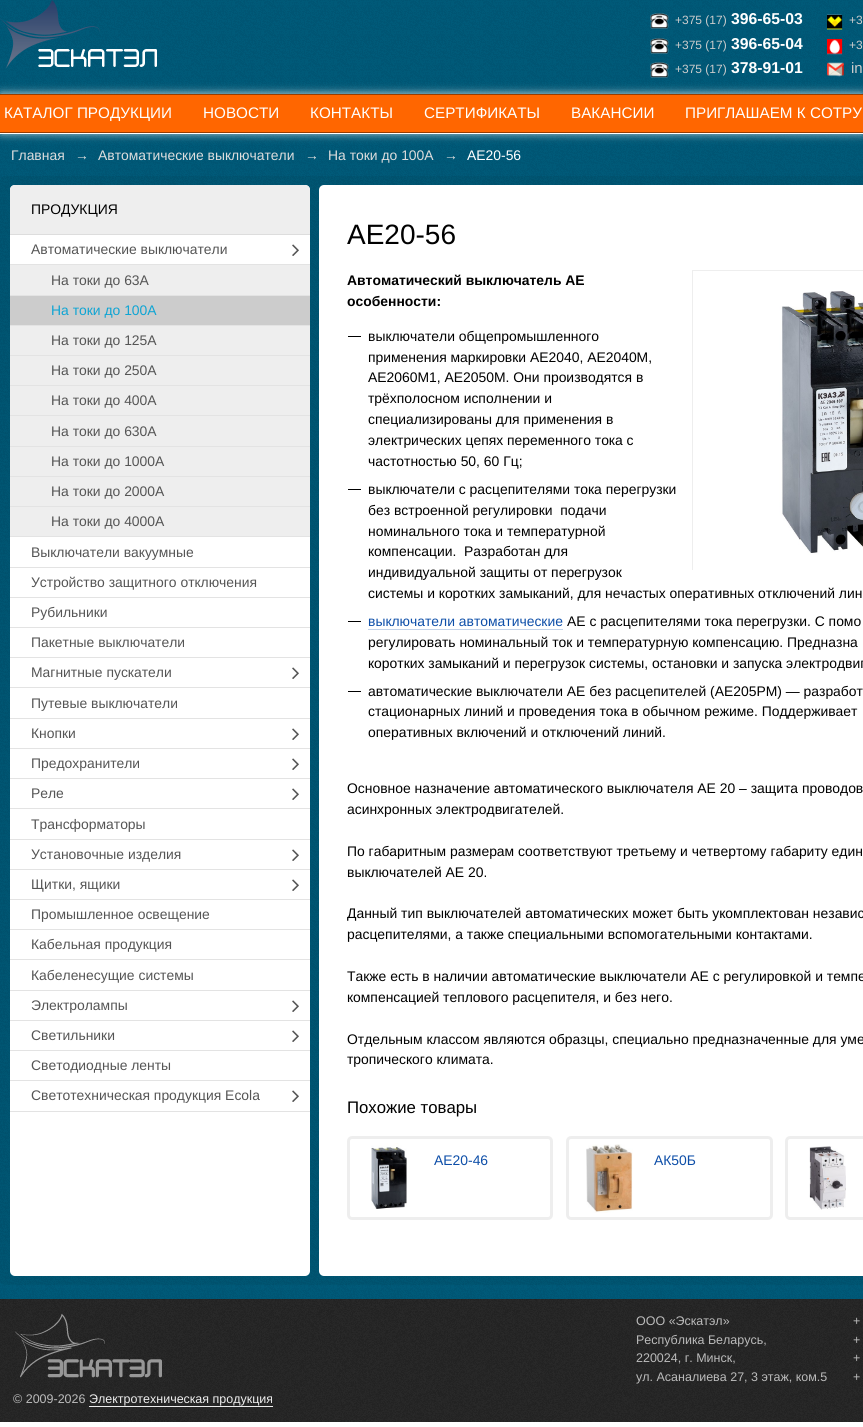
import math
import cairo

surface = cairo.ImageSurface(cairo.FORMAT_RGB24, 863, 1427)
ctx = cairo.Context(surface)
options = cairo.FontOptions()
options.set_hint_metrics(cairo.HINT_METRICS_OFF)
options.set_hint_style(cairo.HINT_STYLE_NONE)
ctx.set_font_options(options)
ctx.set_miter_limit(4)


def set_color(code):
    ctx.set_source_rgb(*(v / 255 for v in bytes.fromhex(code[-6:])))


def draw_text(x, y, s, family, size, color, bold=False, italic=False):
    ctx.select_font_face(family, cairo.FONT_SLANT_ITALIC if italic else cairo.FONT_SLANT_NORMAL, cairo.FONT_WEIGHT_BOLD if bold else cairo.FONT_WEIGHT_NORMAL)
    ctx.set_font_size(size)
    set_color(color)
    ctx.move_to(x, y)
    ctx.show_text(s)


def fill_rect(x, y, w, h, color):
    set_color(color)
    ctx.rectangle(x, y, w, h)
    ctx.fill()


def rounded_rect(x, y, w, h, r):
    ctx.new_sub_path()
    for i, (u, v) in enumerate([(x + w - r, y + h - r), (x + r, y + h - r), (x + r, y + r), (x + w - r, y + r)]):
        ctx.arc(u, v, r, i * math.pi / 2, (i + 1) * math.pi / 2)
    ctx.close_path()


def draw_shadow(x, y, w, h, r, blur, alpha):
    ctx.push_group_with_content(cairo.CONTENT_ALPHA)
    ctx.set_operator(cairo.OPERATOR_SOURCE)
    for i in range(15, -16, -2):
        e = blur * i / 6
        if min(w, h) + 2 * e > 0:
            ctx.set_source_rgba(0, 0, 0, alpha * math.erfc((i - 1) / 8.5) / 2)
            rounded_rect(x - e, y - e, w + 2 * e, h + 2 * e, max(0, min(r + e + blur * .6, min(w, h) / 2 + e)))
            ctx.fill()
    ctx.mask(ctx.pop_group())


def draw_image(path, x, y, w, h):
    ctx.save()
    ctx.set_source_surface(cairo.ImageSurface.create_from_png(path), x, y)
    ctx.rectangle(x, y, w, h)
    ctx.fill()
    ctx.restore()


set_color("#ffffff")
ctx.paint()
draw_image("assets/img1.png", 0, 0, 863, 94)
draw_image("assets/img2.png", 0, 0, 157, 68)
draw_image("assets/img3.png", 650, 13, 19, 16)
draw_text(675, 24, "+375 (17)", "Liberation Sans", 12, "#cccccc")
draw_text(731, 24, "396-65-03", "Liberation Sans", 15.75, "#ffffff", bold=True)
draw_image("assets/img4.png", 650, 38, 19, 16)
draw_text(675, 49, "+375 (17)", "Liberation Sans", 12, "#cccccc")
draw_text(731, 49, "396-65-04", "Liberation Sans", 15.75, "#ffffff", bold=True)
draw_image("assets/img5.png", 650, 62, 19, 16)
draw_text(675, 73, "+375 (17)", "Liberation Sans", 12, "#cccccc")
draw_text(731, 73, "378-91-01", "Liberation Sans", 15.75, "#ffffff", bold=True)
draw_image("assets/img6.png", 827, 14, 16, 16)
draw_text(849, 24, "+3", "Liberation Sans", 12, "#cccccc")
draw_image("assets/img7.png", 827, 39, 16, 16)
draw_text(849, 49, "+3", "Liberation Sans", 12, "#cccccc")
draw_image("assets/img8.png", 827, 62, 17, 15)
draw_text(851, 73, "in", "Liberation Sans", 15, "#cccccc")
draw_image("assets/img9.png", 0, 134, 863, 1165)
set_color("#ffffff")
draw_shadow(1, 95, 861, 37, 0, 5, 1)
fill_rect(0, 95, 863, 37, "#ff6600")
fill_rect(0, 94, 863, 1, "#963d01")
fill_rect(0, 132, 863, 1, "#963d01")
draw_text(4, 118, "КАТАЛОГ ПРОДУКЦИИ", "Liberation Sans", 15.25, "#ffffff")
draw_text(203, 118, "НОВОСТИ", "Liberation Sans", 15.25, "#ffffff")
draw_text(310, 118, "КОНТАКТЫ", "Liberation Sans", 15.25, "#ffffff")
draw_text(424, 118, "СЕРТИФИКАТЫ", "Liberation Sans", 15.25, "#ffffff")
draw_text(571, 118, "ВАКАНСИИ", "Liberation Sans", 15.25, "#ffffff")
draw_text(685, 118, "ПРИГЛАШАЕМ К СОТРУ", "Liberation Sans", 15.25, "#ffffff")
draw_text(11, 160, "Главная", "Liberation Sans", 13.9, "#dddddd")
draw_text(75, 160, "→", "Liberation Sans", 13.9, "#dddddd")
draw_text(98, 160, "Автоматические выключатели", "Liberation Sans", 13.9, "#dddddd")
draw_text(305, 160, "→", "Liberation Sans", 13.9, "#dddddd")
draw_text(328, 160, "На токи до 100А", "Liberation Sans", 13.9, "#dddddd")
draw_text(444, 160, "→", "Liberation Sans", 13.9, "#dddddd")
draw_text(467, 160, "АЕ20-56", "Liberation Sans", 13.9, "#ffffff")
rounded_rect(10, 185, 300, 1091, 5)
ctx.fill()
set_color("#eeeeee")
ctx.new_path()
ctx.move_to(15, 185)
ctx.line_to(305, 185)
ctx.curve_to(308, 185, 310, 187, 310, 190)
ctx.line_to(310, 235)
ctx.line_to(10, 235)
ctx.line_to(10, 190)
ctx.curve_to(10, 187, 12, 185, 15, 185)
ctx.close_path()
ctx.fill()
fill_rect(10, 234, 300, 1, "#dddddd")
draw_text(31, 214, "ПРОДУКЦИЯ", "Liberation Sans", 13.9, "#000000")
fill_rect(10, 264, 300, 1, "#e3e3e3")
draw_text(31, 254, "Автоматические выключатели", "Liberation Sans", 13.9, "#555555")
draw_image("assets/img10.png", 292, 244, 7, 12)
fill_rect(10, 295, 300, 1, "#e3e3e3")
fill_rect(10, 265, 300, 30, "#eeeeee")
draw_text(51, 285, "На токи до 63А", "Liberation Sans", 13.9, "#555555")
fill_rect(10, 325, 300, 1, "#e3e3e3")
fill_rect(10, 296, 300, 29, "#cccccc")
draw_text(51, 315, "На токи до 100А", "Liberation Sans", 13.9, "#0ea4d3")
fill_rect(10, 355, 300, 1, "#e3e3e3")
fill_rect(10, 326, 300, 29, "#eeeeee")
draw_text(51, 345, "На токи до 125А", "Liberation Sans", 13.9, "#555555")
fill_rect(10, 385, 300, 1, "#e3e3e3")
fill_rect(10, 356, 300, 29, "#eeeeee")
draw_text(51, 375, "На токи до 250А", "Liberation Sans", 13.9, "#555555")
fill_rect(10, 415, 300, 1, "#e3e3e3")
fill_rect(10, 386, 300, 29, "#eeeeee")
draw_text(51, 405, "На токи до 400А", "Liberation Sans", 13.9, "#555555")
fill_rect(10, 446, 300, 1, "#e3e3e3")
fill_rect(10, 416, 300, 30, "#eeeeee")
draw_text(51, 436, "На токи до 630А", "Liberation Sans", 13.9, "#555555")
fill_rect(10, 476, 300, 1, "#e3e3e3")
fill_rect(10, 447, 300, 29, "#eeeeee")
draw_text(51, 466, "На токи до 1000А", "Liberation Sans", 13.9, "#555555")
fill_rect(10, 506, 300, 1, "#e3e3e3")
fill_rect(10, 477, 300, 29, "#eeeeee")
draw_text(51, 496, "На токи до 2000А", "Liberation Sans", 13.9, "#555555")
fill_rect(10, 536, 300, 1, "#e3e3e3")
fill_rect(10, 507, 300, 29, "#eeeeee")
draw_text(51, 526, "На токи до 4000A", "Liberation Sans", 13.9, "#555555")
fill_rect(10, 567, 300, 1, "#e3e3e3")
draw_text(31, 557, "Выключатели вакуумные", "Liberation Sans", 13.9, "#555555")
fill_rect(10, 597, 300, 1, "#e3e3e3")
draw_text(31, 587, "Устройство защитного отключения", "Liberation Sans", 13.9, "#555555")
fill_rect(10, 627, 300, 1, "#e3e3e3")
draw_text(31, 617, "Рубильники", "Liberation Sans", 13.9, "#555555")
fill_rect(10, 657, 300, 1, "#e3e3e3")
draw_text(31, 647, "Пакетные выключатели", "Liberation Sans", 13.9, "#555555")
fill_rect(10, 687, 300, 1, "#e3e3e3")
draw_text(31, 677, "Магнитные пускатели", "Liberation Sans", 13.9, "#555555")
draw_image("assets/img10.png", 292, 667, 7, 12)
fill_rect(10, 718, 300, 1, "#e3e3e3")
draw_text(31, 708, "Путевые выключатели", "Liberation Sans", 13.9, "#555555")
fill_rect(10, 748, 300, 1, "#e3e3e3")
draw_text(31, 738, "Кнопки", "Liberation Sans", 13.9, "#555555")
draw_image("assets/img10.png", 292, 728, 7, 12)
fill_rect(10, 778, 300, 1, "#e3e3e3")
draw_text(31, 768, "Предохранители", "Liberation Sans", 13.9, "#555555")
draw_image("assets/img10.png", 292, 758, 7, 12)
fill_rect(10, 808, 300, 1, "#e3e3e3")
draw_text(31, 798, "Реле", "Liberation Sans", 13.9, "#555555")
draw_image("assets/img10.png", 292, 788, 7, 12)
fill_rect(10, 839, 300, 1, "#e3e3e3")
draw_text(31, 829, "Трансформаторы", "Liberation Sans", 13.9, "#555555")
fill_rect(10, 869, 300, 1, "#e3e3e3")
draw_text(31, 859, "Установочные изделия", "Liberation Sans", 13.9, "#555555")
draw_image("assets/img10.png", 292, 849, 7, 12)
fill_rect(10, 899, 300, 1, "#e3e3e3")
draw_text(31, 889, "Щитки, ящики", "Liberation Sans", 13.9, "#555555")
draw_image("assets/img10.png", 292, 879, 7, 12)
fill_rect(10, 929, 300, 1, "#e3e3e3")
draw_text(31, 919, "Промышленное освещение", "Liberation Sans", 13.9, "#555555")
fill_rect(10, 959, 300, 1, "#e3e3e3")
draw_text(31, 949, "Кабельная продукция", "Liberation Sans", 13.9, "#555555")
fill_rect(10, 990, 300, 1, "#e3e3e3")
draw_text(31, 980, "Кабеленесущие системы", "Liberation Sans", 13.9, "#555555")
fill_rect(10, 1020, 300, 1, "#e3e3e3")
draw_text(31, 1010, "Электролампы", "Liberation Sans", 13.9, "#555555")
draw_image("assets/img10.png", 292, 1000, 7, 12)
fill_rect(10, 1050, 300, 1, "#e3e3e3")
draw_text(31, 1040, "Светильники", "Liberation Sans", 13.9, "#555555")
draw_image("assets/img10.png", 292, 1030, 7, 12)
fill_rect(10, 1080, 300, 1, "#e3e3e3")
draw_text(31, 1070, "Светодиодные ленты", "Liberation Sans", 13.9, "#555555")
fill_rect(10, 1111, 300, 1, "#e3e3e3")
draw_text(31, 1100, "Светотехническая продукция Ecola", "Liberation Sans", 13.9, "#555555")
draw_image("assets/img10.png", 292, 1090, 7, 12)
set_color("#ffffff")
rounded_rect(319, 185, 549, 1091, 5)
ctx.fill()
draw_text(347, 244, "АЕ20-56", "Liberation Sans", 28, "#000000")
draw_text(347, 285, "Автоматический выключатель АЕ", "Liberation Sans", 13.9, "#000000", bold=True)
draw_text(347, 306, "особенности:", "Liberation Sans", 13.9, "#000000", bold=True)
ctx.rectangle(692.5, 270.5, 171, 299)
set_color("#eeeeee")
ctx.set_line_width(1)
ctx.stroke()
draw_image("assets/img11.png", 693, 291, 170, 279)
fill_rect(348, 336, 13, 1, "#000000")
draw_text(368, 341, "выключатели общепромышленного", "Liberation Sans", 13.9, "#000000")
draw_text(368, 362, "применения маркировки АЕ2040, АЕ2040М,", "Liberation Sans", 13.9, "#000000")
draw_text(368, 382, "АЕ2060М1, АЕ2050М. Они производятся в", "Liberation Sans", 13.9, "#000000")
draw_text(368, 403, "трёхполосном исполнении и", "Liberation Sans", 13.9, "#000000")
draw_text(368, 424, "специализированы для применения в", "Liberation Sans", 13.9, "#000000")
draw_text(368, 445, "электрических цепях переменного тока с", "Liberation Sans", 13.9, "#000000")
draw_text(368, 466, "частотностью 50, 60 Гц;", "Liberation Sans", 13.9, "#000000")
fill_rect(348, 489, 13, 1, "#000000")
draw_text(368, 494, "выключатели с расцепителями тока перегрузки", "Liberation Sans", 13.9, "#000000")
draw_text(368, 515, "без встроенной регулировки  подачи", "Liberation Sans", 13.9, "#000000")
draw_text(368, 536, "номинального тока и температурной", "Liberation Sans", 13.9, "#000000")
draw_text(368, 556, "компенсации.  Разработан для", "Liberation Sans", 13.9, "#000000")
draw_text(368, 577, "индивидуальной защиты от перегрузок", "Liberation Sans", 13.9, "#000000")
draw_text(368, 598, "системы и коротких замыканий, для нечастых оперативных отключений лин", "Liberation Sans", 13.9, "#000000")
fill_rect(348, 621, 13, 1, "#000000")
draw_text(368, 626, "выключатели автоматические", "Liberation Sans", 13.9, "#0d4ea8")
fill_rect(368, 629, 195, 1, "#c3d3e9")
draw_text(567, 626, "АЕ с расцепителями тока перегрузки. С помо", "Liberation Sans", 13.9, "#000000")
draw_text(368, 647, "регулировать номинальный ток и температурную компенсацию. Предназна", "Liberation Sans", 13.9, "#000000")
draw_text(368, 668, "коротких замыканий и перегрузок системы, остановки и запуска электродвиг", "Liberation Sans", 13.9, "#000000")
fill_rect(348, 691, 13, 1, "#000000")
draw_text(368, 696, "автоматические выключатели АЕ без расцепителей (АЕ205РМ) — разработ", "Liberation Sans", 13.9, "#000000")
draw_text(368, 716, "стационарных линий и проведения тока в обычном режиме. Поддерживает", "Liberation Sans", 13.9, "#000000")
draw_text(368, 737, "оперативных включений и отключений линий.", "Liberation Sans", 13.9, "#000000")
draw_text(347, 793, "Основное назначение автоматического выключателя АЕ 20 – защита проводов", "Liberation Sans", 13.9, "#000000")
draw_text(347, 814, "асинхронных электродвигателей.", "Liberation Sans", 13.9, "#000000")
draw_text(347, 856, "По габаритным размерам соответствуют третьему и четвертому габариту един", "Liberation Sans", 13.9, "#000000")
draw_text(347, 877, "выключателей АЕ 20.", "Liberation Sans", 13.9, "#000000")
draw_text(347, 918, "Данный тип выключателей автоматических может быть укомплектован независ", "Liberation Sans", 13.9, "#000000")
draw_text(347, 939, "расцепителями, а также специальными вспомогательными контактами.", "Liberation Sans", 13.9, "#000000")
draw_text(347, 981, "Также есть в наличии автоматические выключатели АЕ с регулировкой и темпе", "Liberation Sans", 13.9, "#000000")
draw_text(347, 1002, "компенсацией теплового расцепителя, и без него.", "Liberation Sans", 13.9, "#000000")
draw_text(347, 1044, "Отдельным классом являются образцы, специально предназначенные для уме", "Liberation Sans", 13.9, "#000000")
draw_text(347, 1064, "тропического климата.", "Liberation Sans", 13.9, "#000000")
draw_text(347, 1113, "Похожие товары", "Liberation Sans", 16.75, "#000000")
rounded_rect(348.5, 1137.5, 203, 81, 3.5)
set_color("#eeeeee")
ctx.set_line_width(3)
ctx.stroke()
draw_image("assets/img12.png", 371, 1143, 36, 66)
draw_text(434, 1165, "АЕ20-46", "Liberation Sans", 13.9, "#0d4ea8")
rounded_rect(567.5, 1137.5, 204, 81, 3.5)
set_color("#eeeeee")
ctx.stroke()
draw_image("assets/img13.png", 586, 1144, 47, 69)
draw_text(654, 1165, "АК50Б", "Liberation Sans", 13.9, "#0d4ea8")
rounded_rect(786.5, 1137.5, 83, 81, 3.5)
set_color("#eeeeee")
ctx.stroke()
draw_image("assets/img14.png", 809, 1146, 37, 64)
draw_image("assets/img15.png", 0, 1299, 863, 123)
draw_text(636, 1325, "ООО «Эскатэл»", "Liberation Sans", 12.5, "#bbbbbb")
draw_text(636, 1344, "Республика Беларусь,", "Liberation Sans", 12.5, "#bbbbbb")
draw_text(636, 1362, "220024, г. Минск,", "Liberation Sans", 12.5, "#bbbbbb")
draw_text(636, 1381, "ул. Асаналиева 27, 3 этаж, ком.5", "Liberation Sans", 12.5, "#bbbbbb")
draw_text(853, 1325, "+", "Liberation Sans", 12.5, "#bbbbbb")
draw_text(853, 1344, "+", "Liberation Sans", 12.5, "#bbbbbb")
draw_text(853, 1362, "+", "Liberation Sans", 12.5, "#bbbbbb")
draw_text(853, 1381, "+", "Liberation Sans", 12.5, "#bbbbbb")
draw_image("assets/img16.png", 14, 1314, 148, 64)
draw_text(13, 1403, "© 2009-2026", "Liberation Sans", 12.5, "#bbbbbb")
draw_text(89, 1403, "Электротехническая продукция", "Liberation Sans", 12.5, "#eeeeee")
fill_rect(89, 1406, 184, 1, "#eeeeee")
surface.write_to_png("output.png")
